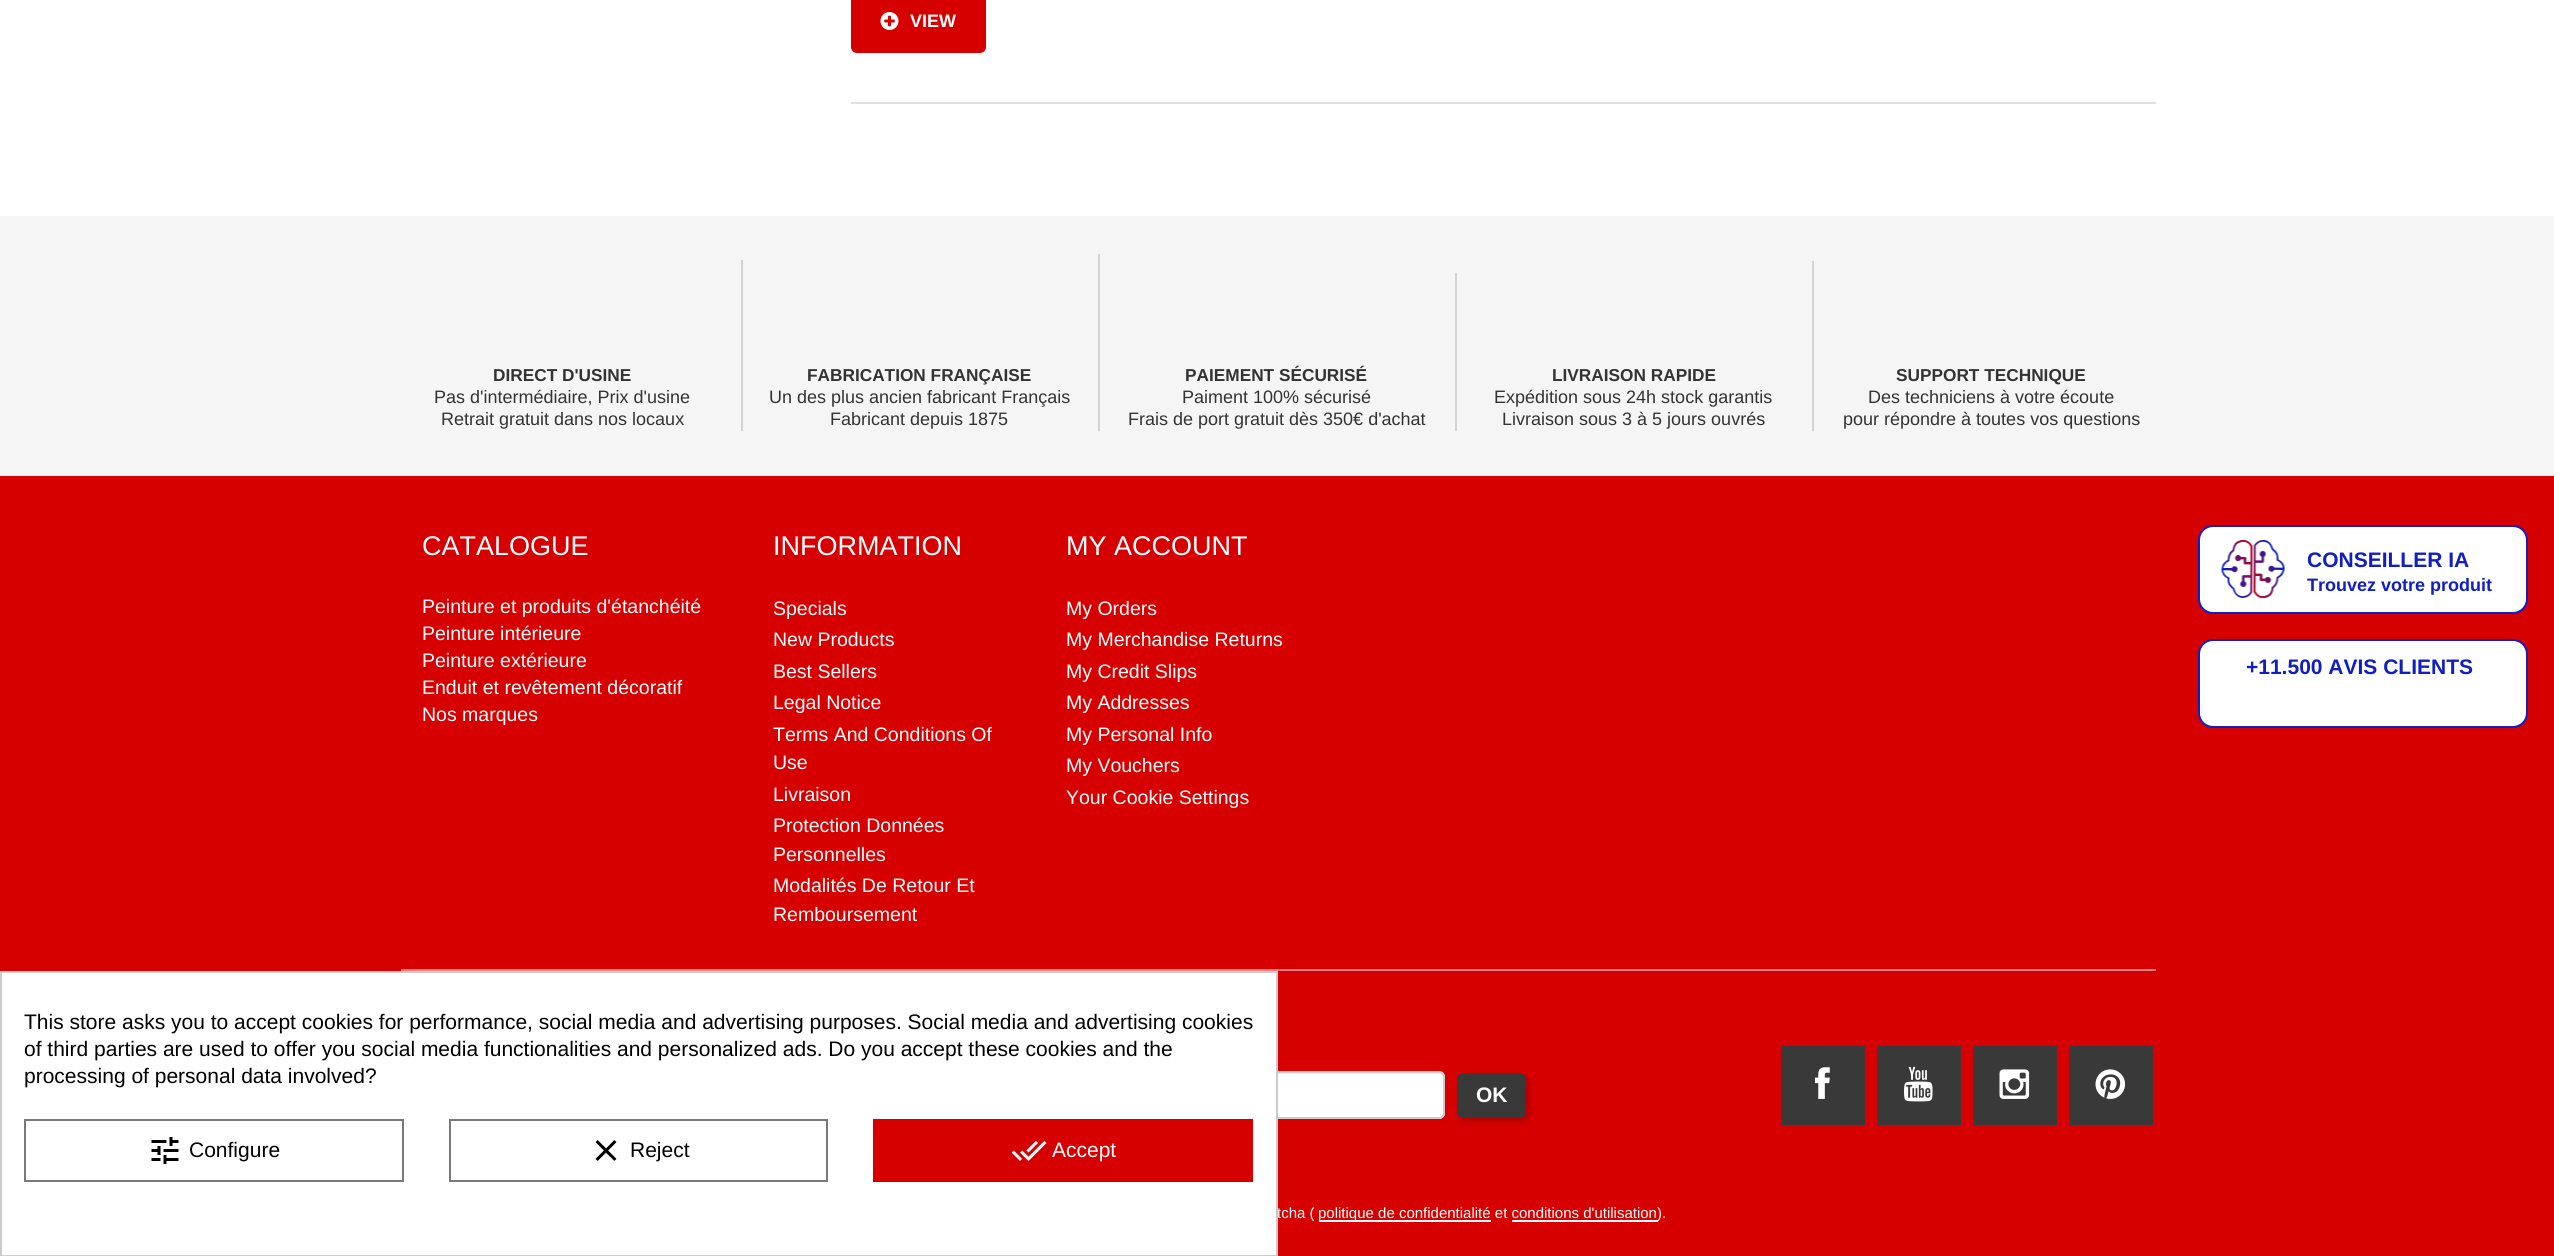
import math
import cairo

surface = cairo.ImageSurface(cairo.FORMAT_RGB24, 2554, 1256)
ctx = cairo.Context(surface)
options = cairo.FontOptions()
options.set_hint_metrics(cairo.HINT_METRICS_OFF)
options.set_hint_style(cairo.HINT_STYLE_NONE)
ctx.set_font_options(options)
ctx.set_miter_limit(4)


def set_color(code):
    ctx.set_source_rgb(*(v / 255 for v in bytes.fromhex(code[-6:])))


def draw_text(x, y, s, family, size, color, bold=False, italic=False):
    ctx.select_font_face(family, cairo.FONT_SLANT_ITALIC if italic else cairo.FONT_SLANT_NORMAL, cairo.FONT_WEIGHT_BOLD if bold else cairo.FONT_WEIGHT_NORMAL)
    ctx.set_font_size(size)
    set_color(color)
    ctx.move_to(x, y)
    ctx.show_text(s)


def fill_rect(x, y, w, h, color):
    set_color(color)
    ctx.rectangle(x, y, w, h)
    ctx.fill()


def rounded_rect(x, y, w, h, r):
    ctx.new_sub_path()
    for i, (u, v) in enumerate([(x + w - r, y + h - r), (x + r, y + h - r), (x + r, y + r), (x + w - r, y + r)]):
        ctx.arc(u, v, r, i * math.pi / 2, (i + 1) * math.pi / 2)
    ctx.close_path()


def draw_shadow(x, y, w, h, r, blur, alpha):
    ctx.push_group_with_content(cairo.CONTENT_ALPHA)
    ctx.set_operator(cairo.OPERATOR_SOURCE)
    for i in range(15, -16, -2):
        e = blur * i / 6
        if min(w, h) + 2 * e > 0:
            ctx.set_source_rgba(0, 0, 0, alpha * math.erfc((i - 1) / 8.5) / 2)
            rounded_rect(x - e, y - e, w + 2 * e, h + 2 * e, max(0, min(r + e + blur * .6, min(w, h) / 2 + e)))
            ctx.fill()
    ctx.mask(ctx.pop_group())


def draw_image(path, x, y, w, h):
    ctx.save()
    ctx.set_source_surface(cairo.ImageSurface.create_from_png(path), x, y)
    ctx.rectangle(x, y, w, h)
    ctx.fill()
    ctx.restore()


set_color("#ffffff")
ctx.paint()
set_color("#d60000")
rounded_rect(851, -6, 135, 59, 6)
ctx.fill()
draw_image("assets/img1.png", 880, 12, 19, 18)
draw_text(910, 27, "VIEW", "Liberation Sans", 18, "#ffffff", bold=True)
fill_rect(851, 102, 1305, 2, "#e0e0e0")
fill_rect(0, 216, 2554, 260, "#f5f5f5")
fill_rect(741, 260, 2, 171, "#d3d3d3")
draw_text(493, 381, "DIRECT D'USINE", "Liberation Sans", 17.25, "#333333", bold=True)
draw_text(434, 403, "Pas d'intermédiaire, Prix d'usine", "Liberation Sans", 18, "#333333")
draw_text(441, 425, "Retrait gratuit dans nos locaux", "Liberation Sans", 18, "#333333")
fill_rect(1098, 254, 2, 177, "#d3d3d3")
draw_text(807, 381, "FABRICATION FRANÇAISE", "Liberation Sans", 17.25, "#333333", bold=True)
draw_text(769, 403, "Un des plus ancien fabricant Français", "Liberation Sans", 18, "#333333")
draw_text(830, 425, "Fabricant depuis 1875", "Liberation Sans", 18, "#333333")
fill_rect(1455, 273, 2, 158, "#d3d3d3")
draw_text(1185, 381, "PAIEMENT SÉCURISÉ", "Liberation Sans", 17.25, "#333333", bold=True)
draw_text(1182, 403, "Paiment 100% sécurisé", "Liberation Sans", 18, "#333333")
draw_text(1128, 425, "Frais de port gratuit dès 350€ d'achat", "Liberation Sans", 18, "#333333")
fill_rect(1812, 261, 2, 170, "#d3d3d3")
draw_text(1552, 381, "LIVRAISON RAPIDE", "Liberation Sans", 17.25, "#333333", bold=True)
draw_text(1494, 403, "Expédition sous 24h stock garantis", "Liberation Sans", 18, "#333333")
draw_text(1502, 425, "Livraison sous 3 à 5 jours ouvrés", "Liberation Sans", 18, "#333333")
draw_text(1896, 381, "SUPPORT TECHNIQUE", "Liberation Sans", 17.25, "#333333", bold=True)
draw_text(1868, 403, "Des techniciens à votre écoute", "Liberation Sans", 18, "#333333")
draw_text(1843, 425, "pour répondre à toutes vos questions", "Liberation Sans", 18, "#333333")
fill_rect(0, 476, 2554, 780, "#d60000")
draw_text(422, 555, "CATALOGUE", "Liberation Sans", 27, "#ffffff")
draw_text(422, 613, "Peinture et produits d'étanchéité", "Liberation Sans", 19.5, "#ffffff")
draw_text(422, 640, "Peinture intérieure", "Liberation Sans", 19.5, "#ffffff")
draw_text(422, 667, "Peinture extérieure", "Liberation Sans", 19.5, "#ffffff")
draw_text(422, 694, "Enduit et revêtement décoratif", "Liberation Sans", 19.5, "#ffffff")
draw_text(422, 721, "Nos marques", "Liberation Sans", 19.5, "#ffffff")
draw_text(773, 555, "INFORMATION", "Liberation Sans", 27, "#ffffff")
draw_text(773, 615, "Specials", "Liberation Sans", 19.5, "#ffffff")
draw_text(773, 646, "New Products", "Liberation Sans", 19.5, "#ffffff")
draw_text(773, 678, "Best Sellers", "Liberation Sans", 19.5, "#ffffff")
draw_text(773, 709, "Legal Notice", "Liberation Sans", 19.5, "#ffffff")
draw_text(773, 741, "Terms And Conditions Of", "Liberation Sans", 19.5, "#ffffff")
draw_text(773, 769, "Use", "Liberation Sans", 19.5, "#ffffff")
draw_text(773, 801, "Livraison", "Liberation Sans", 19.5, "#ffffff")
draw_text(773, 832, "Protection Données", "Liberation Sans", 19.5, "#ffffff")
draw_text(773, 861, "Personnelles", "Liberation Sans", 19.5, "#ffffff")
draw_text(773, 892, "Modalités De Retour Et", "Liberation Sans", 19.5, "#ffffff")
draw_text(773, 921, "Remboursement", "Liberation Sans", 19.5, "#ffffff")
draw_text(1066, 555, "MY ACCOUNT", "Liberation Sans", 27, "#ffffff")
draw_text(1066, 615, "My Orders", "Liberation Sans", 19.5, "#ffffff")
draw_text(1066, 646, "My Merchandise Returns", "Liberation Sans", 19.5, "#ffffff")
draw_text(1066, 678, "My Credit Slips", "Liberation Sans", 19.5, "#ffffff")
draw_text(1066, 709, "My Addresses", "Liberation Sans", 19.5, "#ffffff")
draw_text(1066, 741, "My Personal Info", "Liberation Sans", 19.5, "#ffffff")
draw_text(1066, 772, "My Vouchers", "Liberation Sans", 19.5, "#ffffff")
draw_text(1066, 804, "Your Cookie Settings", "Liberation Sans", 19.5, "#ffffff")
fill_rect(401, 969, 1755, 2, "#eb8080")
set_color("#ffffff")
rounded_rect(1001, 1071, 444, 48, 6)
ctx.fill()
set_color("#ececec")
ctx.new_path()
ctx.move_to(1006, 1074)
ctx.line_to(1438, 1074)
ctx.curve_to(1441, 1074, 1443, 1076, 1443, 1078)
ctx.curve_to(1443, 1075, 1441, 1073, 1438, 1073)
ctx.line_to(1007, 1073)
ctx.curve_to(1004, 1073, 1002, 1075, 1002, 1078)
ctx.curve_to(1002, 1076, 1004, 1074, 1006, 1074)
ctx.close_path()
ctx.fill()
rounded_rect(1002, 1072, 442, 46, 5)
set_color("#cccccc")
ctx.stroke()
set_color("#000000")
draw_shadow(1460, 1076, 69, 45, 6, 3, 0.2)
set_color("#393939")
rounded_rect(1457, 1073, 69, 45, 6)
ctx.fill()
draw_text(1476, 1102, "OK", "Liberation Sans", 21, "#ffffff", bold=True)
fill_rect(1781, 1046, 84, 79, "#393939")
draw_image("assets/img2.png", 1815, 1067, 15, 32)
fill_rect(1877, 1046, 84, 79, "#393939")
draw_image("assets/img3.png", 1904, 1066, 29, 36)
fill_rect(1973, 1046, 84, 79, "#393939")
draw_image("assets/img4.png", 1999, 1069, 31, 30)
fill_rect(2069, 1046, 84, 79, "#393939")
draw_image("assets/img5.png", 2095, 1069, 31, 30)
set_color("#ffffff")
rounded_rect(2199, 526, 328, 87, 14)
ctx.fill_preserve()
set_color("#111ec4")
ctx.stroke()
draw_image("assets/img6.png", 2221, 540, 64, 58)
draw_text(2307, 567, "CONSEILLER IA", "Liberation Sans", 21, "#111ec4", bold=True)
draw_text(2307, 591, "Trouvez votre produit", "Liberation Sans", 18, "#111ec4", bold=True)
set_color("#ffffff")
rounded_rect(2199, 640, 328, 87, 14)
ctx.fill_preserve()
set_color("#111ec4")
ctx.stroke()
draw_text(2246, 674, "+11.500 AVIS CLIENTS", "Liberation Sans", 21, "#111ec4", bold=True)
draw_text(1277, 1218, "tcha (", "Liberation Sans", 15, "#ffffff")
fill_rect(1319, 1220, 172, 2, "#ffffff")
draw_text(1318, 1218, "politique de confidentialité et conditions d'utilisation", "Liberation Sans", 15, "#ffffff")
fill_rect(1512, 1220, 146, 2, "#ffffff")
draw_text(1657, 1218, ").", "Liberation Sans", 15, "#ffffff")
ctx.rectangle(1, 972, 1276, 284)
ctx.fill_preserve()
set_color("#cccccc")
ctx.stroke()
draw_text(24, 1029, "This store asks you to accept cookies for performance, social media and advertising purposes. Social media and advertising cookies", "Liberation Sans", 21, "#000000")
draw_text(24, 1056, "of third parties are used to offer you social media functionalities and personalized ads. Do you accept these cookies and the", "Liberation Sans", 21, "#000000")
draw_text(24, 1083, "processing of personal data involved?", "Liberation Sans", 21, "#000000")
ctx.rectangle(25, 1120, 378, 61)
set_color("#7a7a7a")
ctx.stroke()
draw_image("assets/img7.png", 151, 1137, 28, 27)
draw_text(189, 1157, "Configure", "Liberation Sans", 21, "#000000")
ctx.rectangle(450, 1120, 377, 61)
set_color("#7a7a7a")
ctx.stroke()
draw_image("assets/img8.png", 595, 1140, 22, 21)
draw_text(630, 1157, "Reject", "Liberation Sans", 21, "#000000")
fill_rect(873, 1119, 380, 63, "#d60000")
draw_image("assets/img9.png", 1011, 1141, 36, 20)
draw_text(1052, 1157, "Accept", "Liberation Sans", 21, "#ffffff")
surface.write_to_png("output.png")
